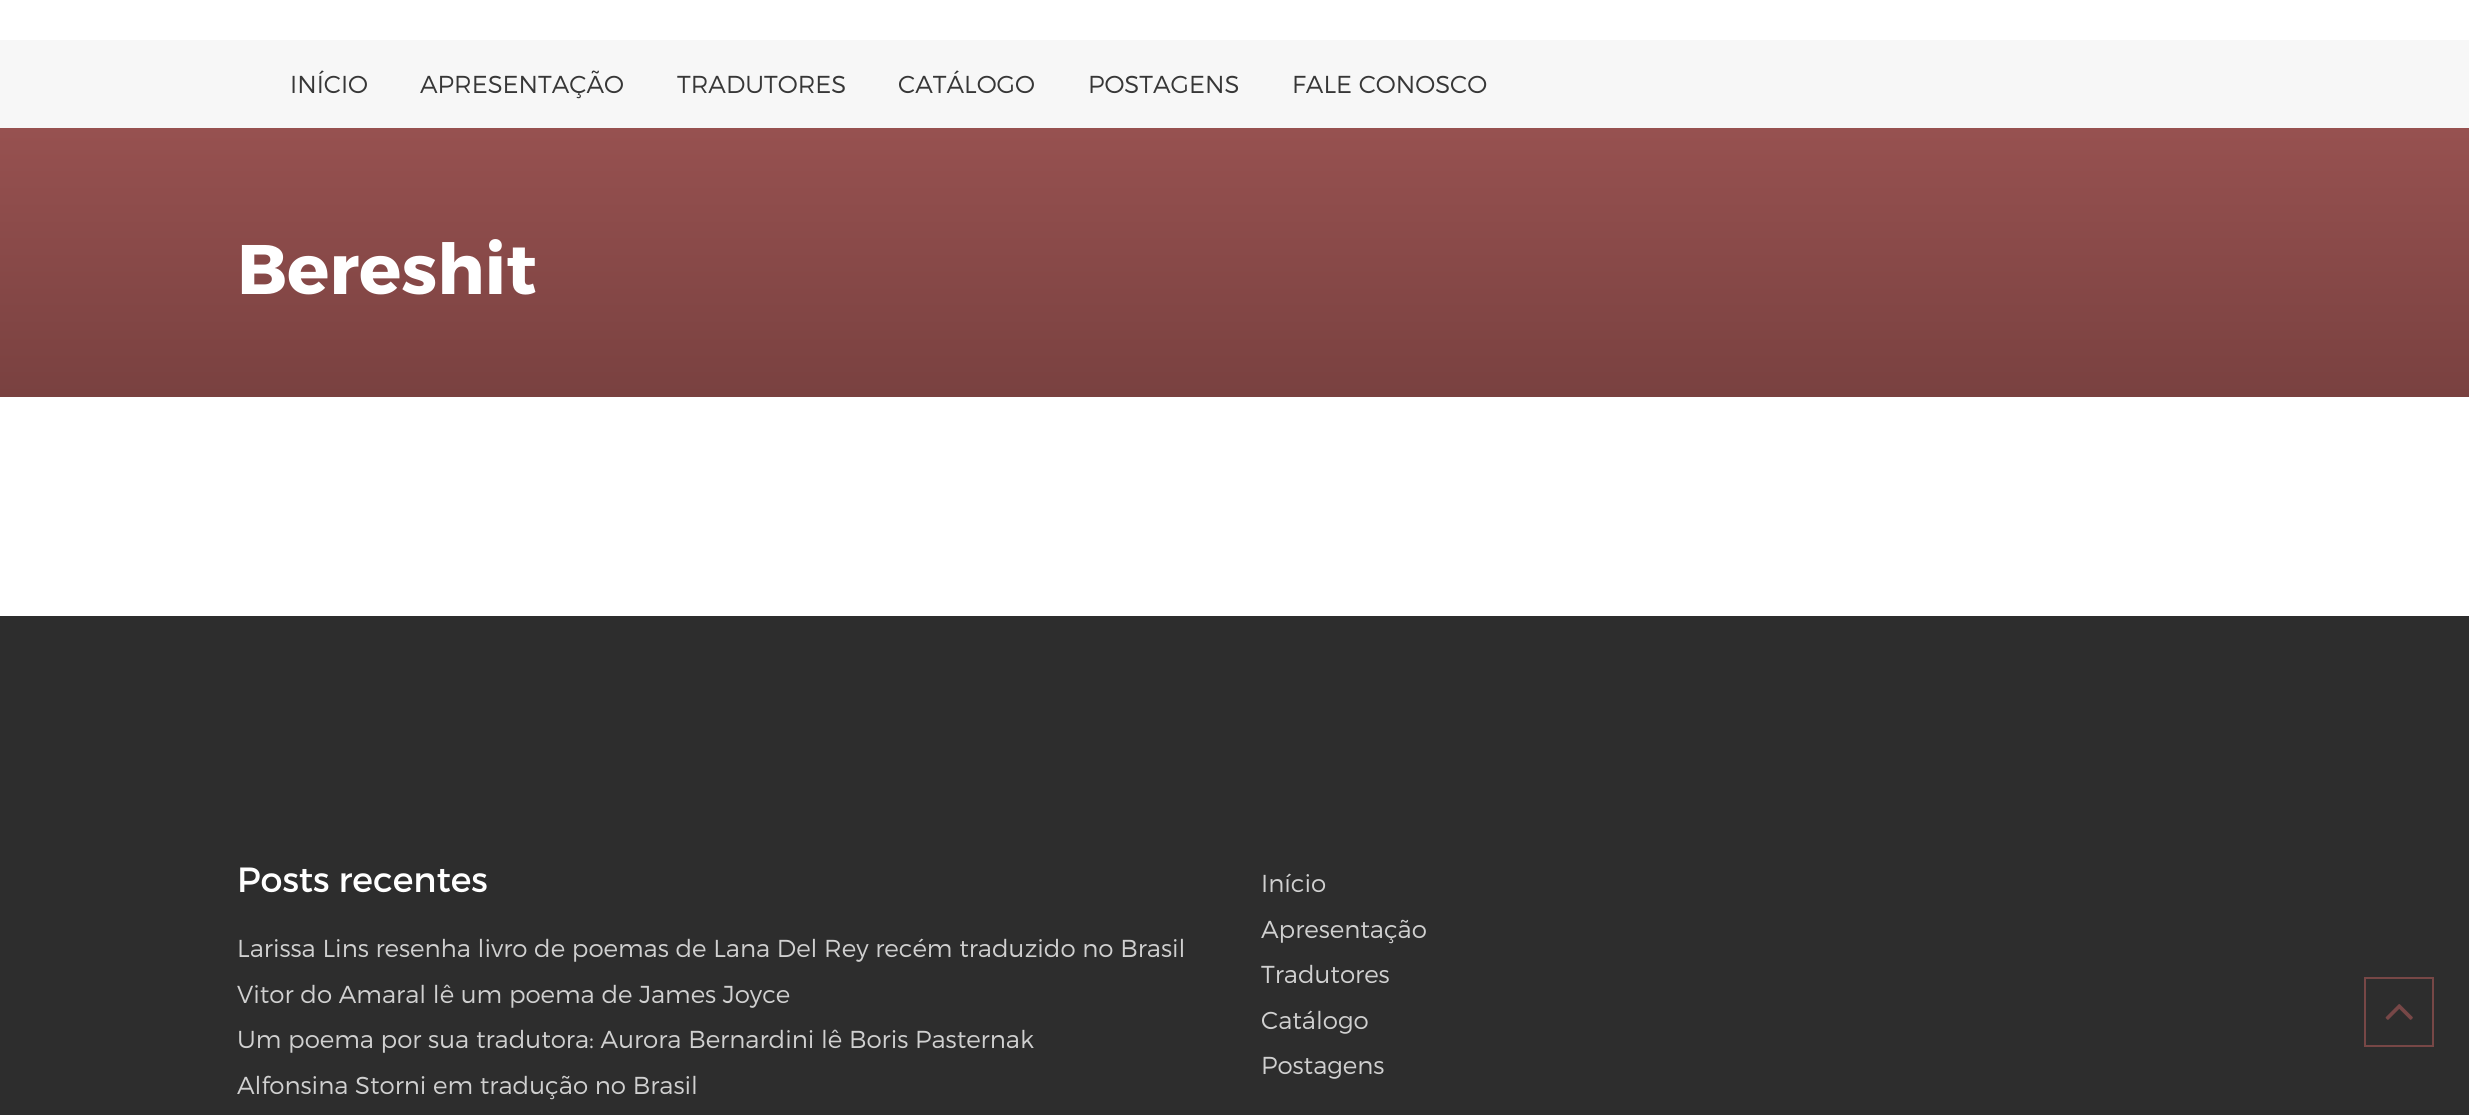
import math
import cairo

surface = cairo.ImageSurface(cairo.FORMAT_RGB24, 2469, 1115)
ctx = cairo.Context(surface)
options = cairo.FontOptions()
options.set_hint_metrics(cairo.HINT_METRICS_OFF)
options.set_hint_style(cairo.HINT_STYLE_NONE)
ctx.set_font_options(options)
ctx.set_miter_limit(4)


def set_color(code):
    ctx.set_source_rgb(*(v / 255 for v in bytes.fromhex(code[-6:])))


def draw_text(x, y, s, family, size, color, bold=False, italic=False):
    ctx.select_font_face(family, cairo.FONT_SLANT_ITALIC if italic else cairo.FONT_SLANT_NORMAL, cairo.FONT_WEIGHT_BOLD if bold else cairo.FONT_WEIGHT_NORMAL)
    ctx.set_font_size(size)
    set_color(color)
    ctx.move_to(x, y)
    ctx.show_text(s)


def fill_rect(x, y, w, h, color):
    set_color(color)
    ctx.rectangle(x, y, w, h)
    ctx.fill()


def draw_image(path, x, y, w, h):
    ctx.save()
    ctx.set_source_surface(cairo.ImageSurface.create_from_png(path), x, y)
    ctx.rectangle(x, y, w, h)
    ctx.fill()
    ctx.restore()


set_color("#ffffff")
ctx.paint()
fill_rect(0, 40, 2469, 88, "#f7f7f7")
draw_text(290, 93, "INÍCIO", "Montserrat Light", 24.5, "#373737")
draw_text(420, 93, "APRESENTAÇÃO", "Montserrat Light", 24.5, "#373737")
draw_text(677, 93, "TRADUTORES", "Montserrat Light", 24.5, "#373737")
draw_text(898, 93, "CATÁLOGO", "Montserrat Light", 24.5, "#373737")
draw_text(1088, 93, "POSTAGENS", "Montserrat Light", 24.5, "#373737")
draw_text(1292, 93, "FALE CONOSCO", "Montserrat Light", 24.5, "#373737")
gradient = cairo.LinearGradient(1235, 397, 1235, 128)
gradient.add_color_stop_rgba(0, 0.475, 0.255, 0.251, 1)
gradient.add_color_stop_rgba(1, 0.592, 0.318, 0.314, 1)
ctx.set_source(gradient)
ctx.rectangle(0, 128, 2469, 269)
ctx.fill()
draw_text(237, 294, "Bereshit", "Montserrat", 70, "#ffffff", bold=True)
fill_rect(0, 616, 2469, 499, "#2d2d2d")
draw_text(237, 892, "Posts recentes", "Montserrat", 35, "#ffffff")
draw_text(237, 957, "Larissa Lins resenha livro de poemas de Lana Del Rey recém traduzido no Brasil", "Montserrat Light", 24.5, "#d0d0d0")
draw_text(237, 1003, "Vitor do Amaral lê um poema de James Joyce", "Montserrat Light", 24.5, "#d0d0d0")
draw_text(237, 1048, "Um poema por sua tradutora: Aurora Bernardini lê Boris Pasternak", "Montserrat Light", 24.5, "#d0d0d0")
draw_text(237, 1094, "Alfonsina Storni em tradução no Brasil", "Montserrat Light", 24.5, "#d0d0d0")
draw_text(1261, 892, "Início", "Montserrat Light", 24.5, "#d0d0d0")
draw_text(1261, 938, "Apresentação", "Montserrat Light", 24.5, "#d0d0d0")
draw_text(1261, 983, "Tradutores", "Montserrat Light", 24.5, "#d0d0d0")
draw_text(1261, 1029, "Catálogo", "Montserrat Light", 24.5, "#d0d0d0")
draw_text(1261, 1074, "Postagens", "Montserrat Light", 24.5, "#d0d0d0")
ctx.rectangle(2365, 978, 68, 68)
set_color("#774746")
ctx.stroke()
draw_image("assets/img1.png", 2385, 1004, 28, 16)
surface.write_to_png("output.png")
